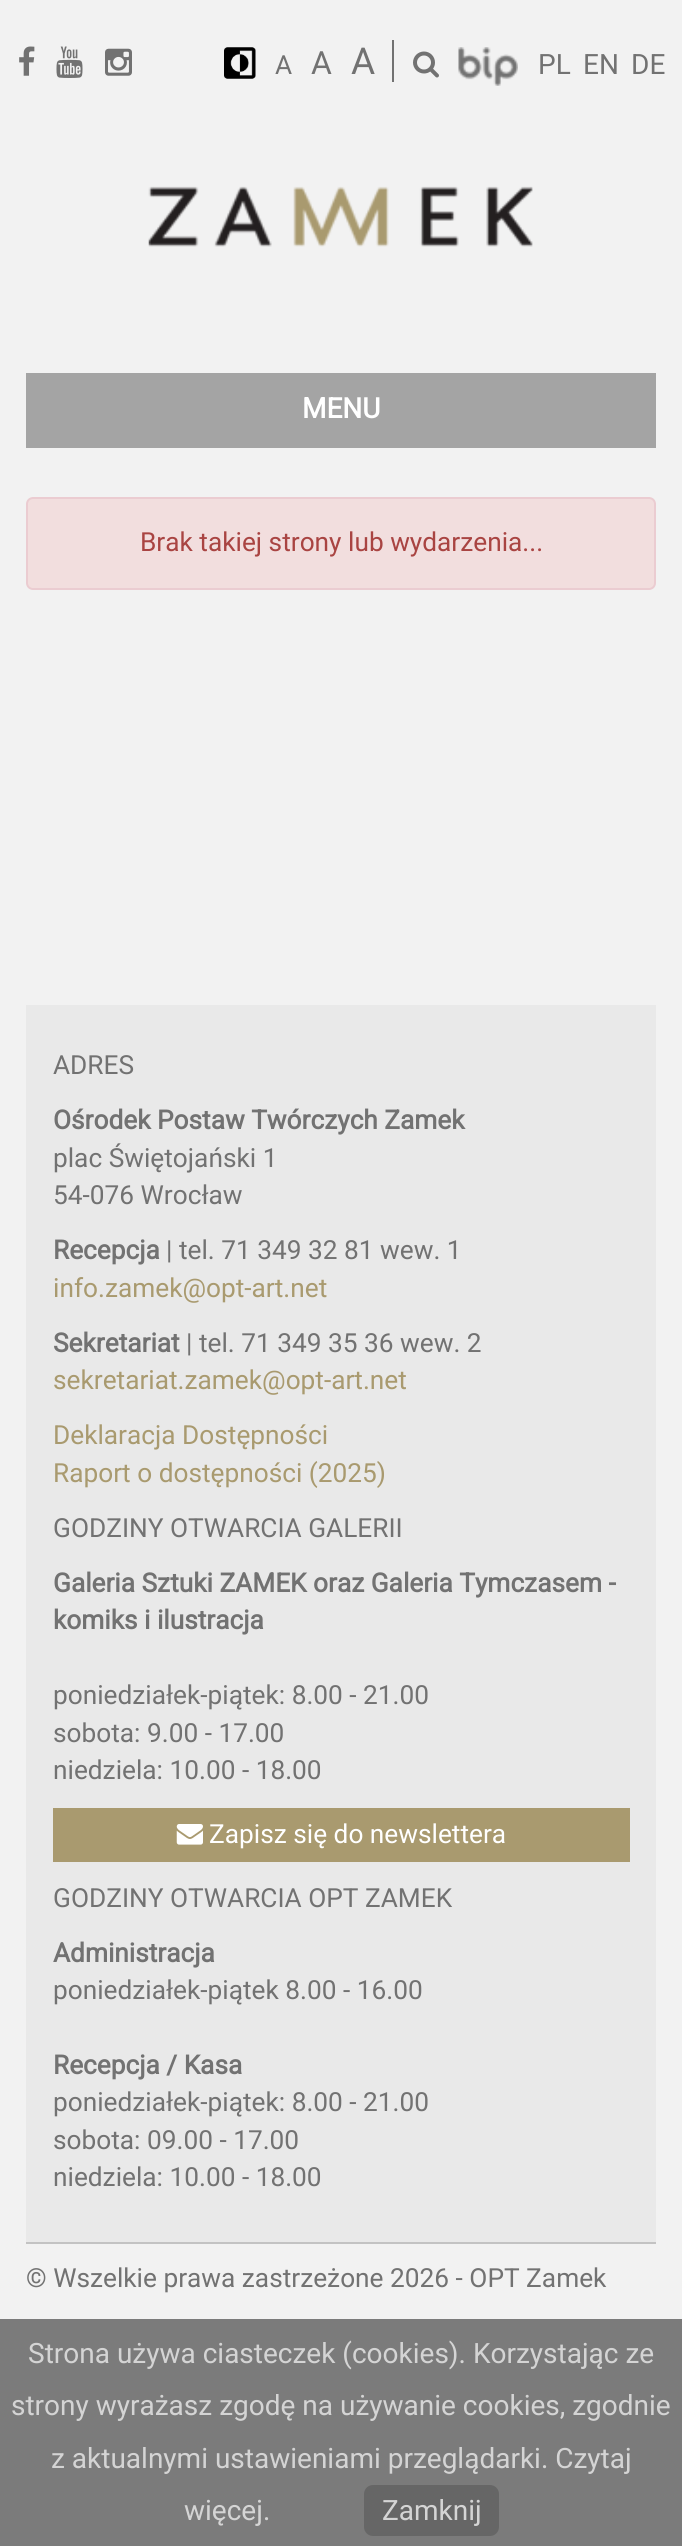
import math
import cairo

surface = cairo.ImageSurface(cairo.FORMAT_RGB24, 682, 2546)
ctx = cairo.Context(surface)
options = cairo.FontOptions()
options.set_hint_metrics(cairo.HINT_METRICS_OFF)
options.set_hint_style(cairo.HINT_STYLE_NONE)
ctx.set_font_options(options)
ctx.set_miter_limit(4)


def set_color(code):
    ctx.set_source_rgb(*(v / 255 for v in bytes.fromhex(code[-6:])))


def draw_text(x, y, s, family, size, color, bold=False, italic=False):
    ctx.select_font_face(family, cairo.FONT_SLANT_ITALIC if italic else cairo.FONT_SLANT_NORMAL, cairo.FONT_WEIGHT_BOLD if bold else cairo.FONT_WEIGHT_NORMAL)
    ctx.set_font_size(size)
    set_color(color)
    ctx.move_to(x, y)
    ctx.show_text(s)


def fill_rect(x, y, w, h, color):
    set_color(color)
    ctx.rectangle(x, y, w, h)
    ctx.fill()


def rounded_rect(x, y, w, h, r):
    ctx.new_sub_path()
    for i, (u, v) in enumerate([(x + w - r, y + h - r), (x + r, y + h - r), (x + r, y + r), (x + w - r, y + r)]):
        ctx.arc(u, v, r, i * math.pi / 2, (i + 1) * math.pi / 2)
    ctx.close_path()


def draw_image(path, x, y, w, h):
    ctx.save()
    ctx.set_source_surface(cairo.ImageSurface.create_from_png(path), x, y)
    ctx.rectangle(x, y, w, h)
    ctx.fill()
    ctx.restore()


set_color("#f2f2f2")
ctx.paint()
draw_image("assets/img1.png", 19, 46, 16, 30)
draw_image("assets/img2.png", 56, 46, 27, 32)
draw_image("assets/img3.png", 105, 48, 27, 28)
draw_image("assets/img4.png", 224, 47, 32, 32)
draw_text(275, 74, "A", "Roboto", 26.25, "#727272")
draw_text(311, 74, "A", "Roboto", 32, "#727272")
draw_text(351, 74, "A", "Roboto", 37, "#727272")
fill_rect(392, 40, 2, 42, "#727272")
draw_image("assets/img5.png", 413, 51, 26, 27)
draw_image("assets/img6.png", 458, 47, 60, 39)
draw_text(538, 74, "PL", "Roboto", 28, "#727272")
draw_text(583, 74, "EN", "Roboto", 28, "#727272")
draw_text(631, 74, "DE", "Roboto", 28, "#727272")
draw_image("assets/img7.png", 148, 186, 385, 61)
fill_rect(26, 373, 630, 75, "#a4a4a4")
draw_text(302, 418, "MENU", "Roboto", 28, "#ffffff", bold=True)
set_color("#f2dede")
rounded_rect(27, 498, 628, 91, 6)
ctx.fill_preserve()
set_color("#ebccd1")
ctx.stroke()
draw_text(140, 551, "Brak takiej strony lub wydarzenia...", "Roboto", 26.25, "#a94442")
fill_rect(26, 1005, 630, 1237, "#e9e9e9")
fill_rect(26, 2242, 630, 2, "#c3c3c3")
draw_text(53, 1074, "ADRES", "Roboto", 26.25, "#727272")
draw_text(53, 1129, "Ośrodek Postaw Twórczych Zamek", "Roboto", 26.25, "#727272", bold=True)
draw_text(53, 1167, "plac Świętojański 1", "Roboto", 26.25, "#727272")
draw_text(53, 1204, "54-076 Wrocław", "Roboto", 26.25, "#727272")
draw_text(53, 1259, "Recepcja", "Roboto", 26.25, "#727272", bold=True)
draw_text(166, 1259, "| tel. 71 349 32 81 wew. 1", "Roboto", 26.25, "#727272")
draw_text(53, 1297, "info.zamek@opt-art.net", "Roboto", 26.25, "#a99a6f")
draw_text(53, 1352, "Sekretariat", "Roboto", 26.25, "#727272", bold=True)
draw_text(186, 1352, "| tel. 71 349 35 36 wew. 2", "Roboto", 26.25, "#727272")
draw_text(53, 1389, "sekretariat.zamek@opt-art.net", "Roboto", 26.25, "#a99a6f")
draw_text(53, 1444, "Deklaracja Dostępności", "Roboto", 26.25, "#a99a6f")
draw_text(53, 1482, "Raport o dostępności (2025)", "Roboto", 26.25, "#a99a6f")
draw_text(53, 1537, "GODZINY OTWARCIA GALERII", "Roboto", 26.25, "#727272")
draw_text(53, 1592, "Galeria Sztuki ZAMEK oraz Galeria Tymczasem -", "Roboto", 26.25, "#727272", bold=True)
draw_text(53, 1629, "komiks i ilustracja", "Roboto", 26.25, "#727272", bold=True)
draw_text(53, 1704, "poniedziałek-piątek: 8.00 - 21.00", "Roboto", 26.25, "#727272")
draw_text(53, 1742, "sobota: 9.00 - 17.00", "Roboto", 26.25, "#727272")
draw_text(53, 1779, "niedziela: 10.00 - 18.00", "Roboto", 26.25, "#727272")
fill_rect(53, 1808, 577, 54, "#a99a6f")
draw_image("assets/img8.png", 176, 1824, 27, 21)
draw_text(209, 1843, "Zapisz się do newslettera", "Roboto", 26.25, "#ffffff")
draw_text(53, 1907, "GODZINY OTWARCIA OPT ZAMEK", "Roboto", 26.25, "#727272")
draw_text(53, 1962, "Administracja", "Roboto", 26.25, "#727272", bold=True)
draw_text(53, 1999, "poniedziałek-piątek 8.00 - 16.00", "Roboto", 26.25, "#727272")
draw_text(53, 2074, "Recepcja / Kasa", "Roboto", 26.25, "#727272", bold=True)
draw_text(53, 2111, "poniedziałek-piątek: 8.00 - 21.00", "Roboto", 26.25, "#727272")
draw_text(53, 2149, "sobota: 09.00 - 17.00", "Roboto", 26.25, "#727272")
draw_text(53, 2186, "niedziela: 10.00 - 18.00", "Roboto", 26.25, "#727272")
draw_text(26, 2287, "© Wszelkie prawa zastrzeżone 2026 - OPT Zamek", "Roboto", 26.25, "#727272")
fill_rect(0, 2319, 682, 227, "#7b7b7b")
draw_text(28, 2363, "Strona używa ciasteczek (cookies). Korzystając ze", "Roboto", 28, "#d4d4d4")
draw_text(11, 2415, "strony wyrażasz zgodę na używanie cookies, zgodnie", "Roboto", 28, "#d4d4d4")
draw_text(51, 2468, "z aktualnymi ustawieniami przeglądarki. Czytaj", "Roboto", 28, "#d4d4d4")
draw_text(184, 2520, "więcej.", "Roboto", 28, "#d4d4d4")
set_color("#666666")
rounded_rect(364, 2485, 135, 51, 9)
ctx.fill()
draw_text(382, 2520, "Zamknij", "Roboto", 28, "#d4d4d4")
surface.write_to_png("output.png")
